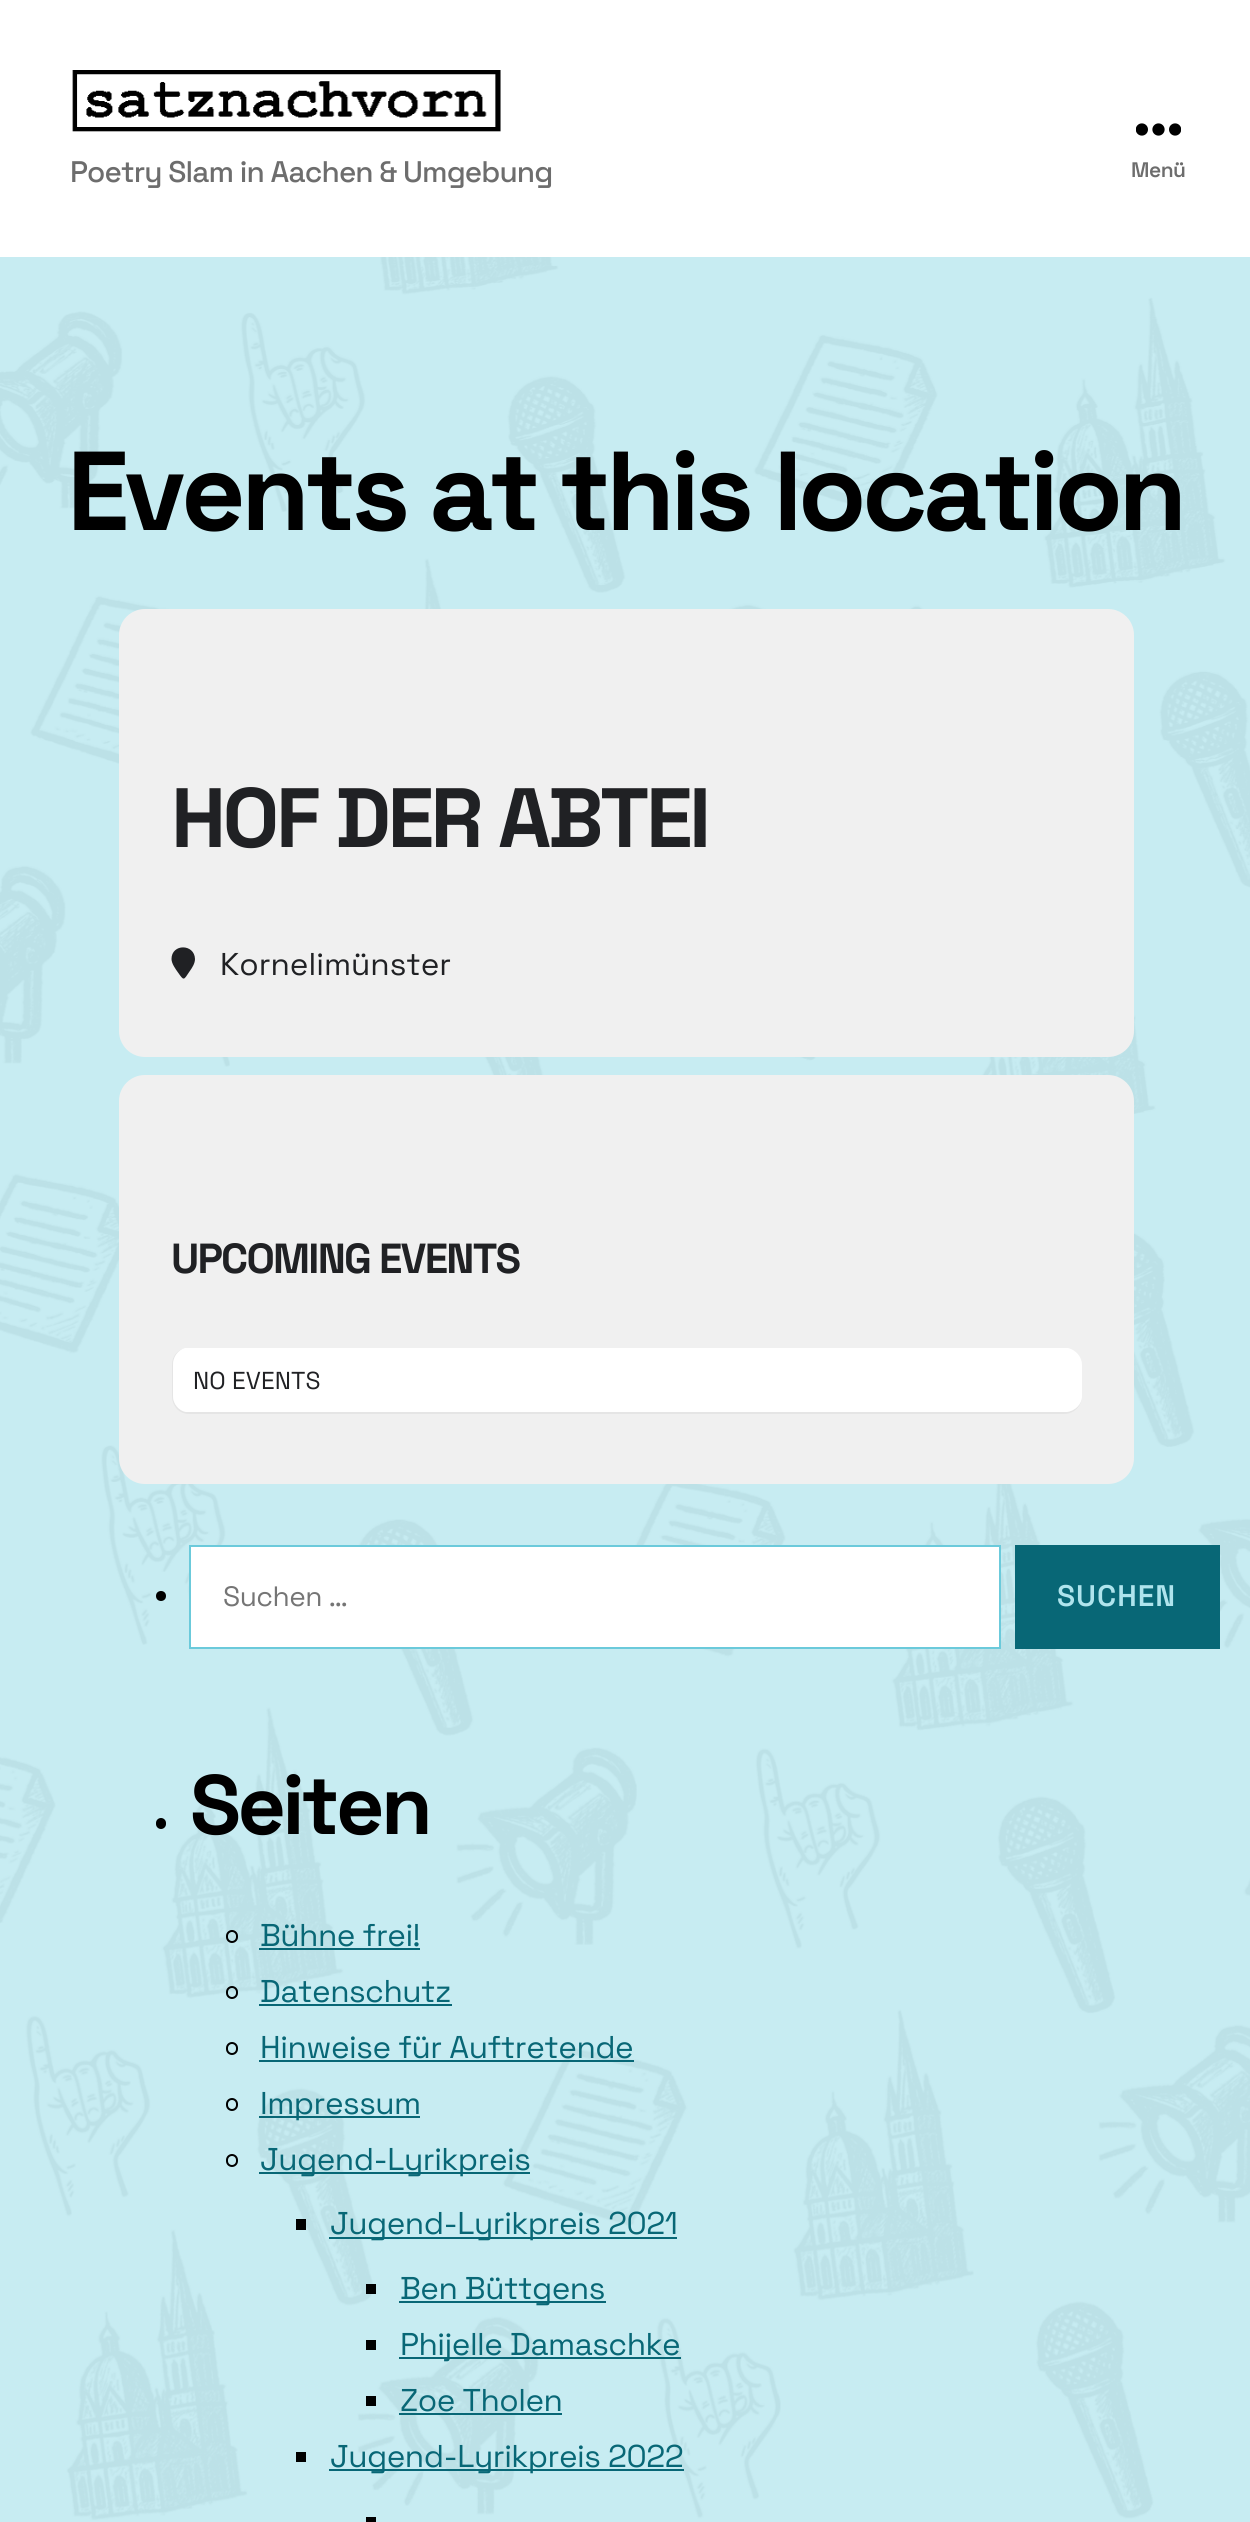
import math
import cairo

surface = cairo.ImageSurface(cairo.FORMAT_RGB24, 1250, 2522)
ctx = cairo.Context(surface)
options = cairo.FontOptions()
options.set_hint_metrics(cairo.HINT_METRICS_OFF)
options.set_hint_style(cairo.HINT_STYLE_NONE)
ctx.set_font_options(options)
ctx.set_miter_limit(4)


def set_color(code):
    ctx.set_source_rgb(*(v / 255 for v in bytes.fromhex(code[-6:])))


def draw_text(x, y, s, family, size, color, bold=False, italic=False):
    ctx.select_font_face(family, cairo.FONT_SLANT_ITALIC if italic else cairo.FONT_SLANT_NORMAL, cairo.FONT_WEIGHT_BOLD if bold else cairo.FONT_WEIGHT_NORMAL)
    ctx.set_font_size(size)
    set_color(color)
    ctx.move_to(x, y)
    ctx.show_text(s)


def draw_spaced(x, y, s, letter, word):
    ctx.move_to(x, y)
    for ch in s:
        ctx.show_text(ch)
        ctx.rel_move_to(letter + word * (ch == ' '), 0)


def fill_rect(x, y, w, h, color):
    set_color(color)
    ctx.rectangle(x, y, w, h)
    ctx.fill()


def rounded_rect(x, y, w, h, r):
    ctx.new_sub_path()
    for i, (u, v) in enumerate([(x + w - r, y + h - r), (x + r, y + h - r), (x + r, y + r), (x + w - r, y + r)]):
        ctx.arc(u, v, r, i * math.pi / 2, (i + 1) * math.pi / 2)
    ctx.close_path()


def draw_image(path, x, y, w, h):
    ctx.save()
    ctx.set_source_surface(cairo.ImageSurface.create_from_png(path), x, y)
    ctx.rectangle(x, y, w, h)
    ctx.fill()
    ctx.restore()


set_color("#ffffff")
ctx.paint()
draw_image("assets/img1.png", 0, 257, 1250, 2265)
draw_image("assets/img2.png", 72, 70, 429, 62)
ctx.select_font_face("Space Grotesk Medium")
ctx.set_font_size(29.75)
set_color("#6d6d6d")
draw_spaced(70, 182, "Poetry Slam in Aachen & Umgebung", -0.9, 0)
draw_image("assets/img3.png", 1136, 123, 45, 13)
ctx.select_font_face("Space Grotesk SemiBold")
ctx.set_font_size(21)
draw_spaced(1131, 177, "Menü", -0.5, 0)
ctx.select_font_face("Space Grotesk", cairo.FONT_SLANT_NORMAL, cairo.FONT_WEIGHT_BOLD)
ctx.set_font_size(112)
set_color("#000000")
draw_spaced(67, 530, "Events at this location", -4.7, 0)
set_color("#f0f0f0")
rounded_rect(119, 609, 1015, 448, 26)
ctx.fill()
ctx.set_font_size(84)
set_color("#202124")
draw_spaced(171, 847, "HOF DER ABTEI", -3.5, 0)
ctx.new_path()
ctx.move_to(195, 959)
ctx.curve_to(195, 963.5, 192, 968, 189.5, 971.5)
ctx.curve_to(183.5, 980.5, 184, 981, 178, 972.5)
ctx.curve_to(175.5, 969, 171.5, 963.5, 171.5, 959)
ctx.curve_to(171.5, 943.5, 194.5, 943.5, 195, 959)
ctx.close_path()
ctx.fill()
draw_text(220, 975, "Kornelimünster", "Space Grotesk", 31.5, "#202124")
set_color("#f0f0f0")
rounded_rect(119, 1075, 1015, 409, 26)
ctx.fill()
ctx.select_font_face("Space Grotesk", cairo.FONT_SLANT_NORMAL, cairo.FONT_WEIGHT_BOLD)
ctx.set_font_size(42)
set_color("#202124")
draw_spaced(171, 1273, "UPCOMING EVENTS", -1.75, 0)
set_color("#e5e5e5")
ctx.set_fill_rule(cairo.FILL_RULE_EVEN_ODD)
ctx.new_path()
ctx.move_to(189, 1348)
ctx.line_to(1064, 1348)
ctx.curve_to(1074, 1348, 1082, 1355, 1082, 1365)
ctx.line_to(1082, 1396)
ctx.curve_to(1082, 1406, 1074, 1414, 1064, 1414)
ctx.line_to(189, 1414)
ctx.curve_to(179, 1414, 172, 1406, 172, 1396)
ctx.line_to(172, 1365)
ctx.curve_to(172, 1355, 179, 1348, 189, 1348)
ctx.close_path()
ctx.move_to(189, 1348)
ctx.line_to(1064, 1348)
ctx.curve_to(1074, 1348, 1082, 1355, 1082, 1365)
ctx.line_to(1082, 1396)
ctx.curve_to(1082, 1405, 1074, 1412, 1064, 1412)
ctx.line_to(189, 1412)
ctx.curve_to(180, 1412, 173, 1405, 173, 1396)
ctx.line_to(173, 1365)
ctx.curve_to(173, 1355, 180, 1348, 189, 1348)
ctx.close_path()
ctx.fill()
set_color("#ffffff")
ctx.set_fill_rule(cairo.FILL_RULE_WINDING)
ctx.new_path()
ctx.move_to(186, 1348)
ctx.line_to(1068, 1348)
ctx.curve_to(1076, 1350, 1082, 1357, 1082, 1365)
ctx.line_to(1082, 1396)
ctx.curve_to(1082, 1404, 1075, 1411, 1067, 1412)
ctx.line_to(186, 1412)
ctx.curve_to(179, 1411, 173, 1404, 173, 1396)
ctx.line_to(173, 1365)
ctx.curve_to(173, 1357, 178, 1350, 185, 1348)
ctx.close_path()
ctx.fill()
draw_text(193, 1389, "NO EVENTS", "Space Grotesk", 24.5, "#202124")
set_color("#000000")
ctx.new_path()
ctx.arc(161, 1596, 5, 0, 2 * math.pi)
ctx.fill()
set_color("#ffffff")
ctx.rectangle(190, 1546, 810, 102)
ctx.fill_preserve()
set_color("#6bcadb")
ctx.stroke()
ctx.set_font_size(28)
set_color("#757575")
draw_spaced(223, 1606, "Suchen …", -0.5, 0)
fill_rect(1015, 1545, 205, 104, "#086776")
ctx.select_font_face("Space Grotesk SemiBold")
ctx.set_font_size(29.75)
set_color("#afe4ed")
draw_spaced(1057, 1606, "SUCHEN", 1, 0)
set_color("#000000")
rounded_rect(156, 1818, 10, 11, 5)
ctx.fill()
ctx.select_font_face("Space Grotesk", cairo.FONT_SLANT_NORMAL, cairo.FONT_WEIGHT_BOLD)
ctx.set_font_size(84)
draw_spaced(190, 1834, "Seiten", -3.5, 0)
rounded_rect(227, 1931, 10, 11, 5)
ctx.stroke()
ctx.select_font_face("Space Grotesk")
ctx.set_font_size(31.5)
set_color("#086776")
draw_spaced(260, 1946, "Bühne frei!", -0.5, 0)
fill_rect(259, 1948, 161, 2, "#086776")
rounded_rect(227, 1987, 10, 11, 5)
set_color("#000000")
ctx.stroke()
set_color("#086776")
draw_spaced(260, 2002, "Datenschutz", -0.5, 0)
fill_rect(259, 2004, 193, 2, "#086776")
rounded_rect(227, 2043, 10, 11, 5)
set_color("#000000")
ctx.stroke()
set_color("#086776")
draw_spaced(260, 2058, "Hinweise für Auftretende", -0.5, 0)
fill_rect(259, 2060, 375, 2, "#086776")
rounded_rect(227, 2099, 10, 11, 5)
set_color("#000000")
ctx.stroke()
fill_rect(259, 2116, 161, 2, "#086776")
draw_spaced(260, 2114, "Impressum", -0.5, 0)
rounded_rect(227, 2155, 10, 11, 5)
set_color("#000000")
ctx.stroke()
fill_rect(259, 2172, 271, 2, "#086776")
draw_spaced(260, 2170, "Jugend-Lyrikpreis", -0.5, 0)
fill_rect(296, 2219, 10, 11, "#000000")
fill_rect(329, 2237, 348, 2, "#086776")
draw_spaced(330, 2234, "Jugend-Lyrikpreis 2021", -0.5, 0)
fill_rect(366, 2284, 10, 10, "#000000")
fill_rect(399, 2301, 207, 2, "#086776")
draw_spaced(400, 2299, "Ben Büttgens", -0.5, 0)
fill_rect(366, 2340, 10, 10, "#000000")
fill_rect(399, 2357, 282, 2, "#086776")
draw_spaced(400, 2355, "Phijelle Damaschke", -0.5, 0)
fill_rect(366, 2396, 10, 10, "#000000")
set_color("#086776")
draw_spaced(400, 2411, "Zoe Tholen", -0.5, 0)
fill_rect(399, 2413, 163, 2, "#086776")
fill_rect(296, 2452, 10, 10, "#000000")
fill_rect(329, 2469, 355, 2, "#086776")
draw_spaced(330, 2467, "Jugend-Lyrikpreis 2022", -0.5, 0)
fill_rect(366, 2517, 10, 5, "#000000")
surface.write_to_png("output.png")
